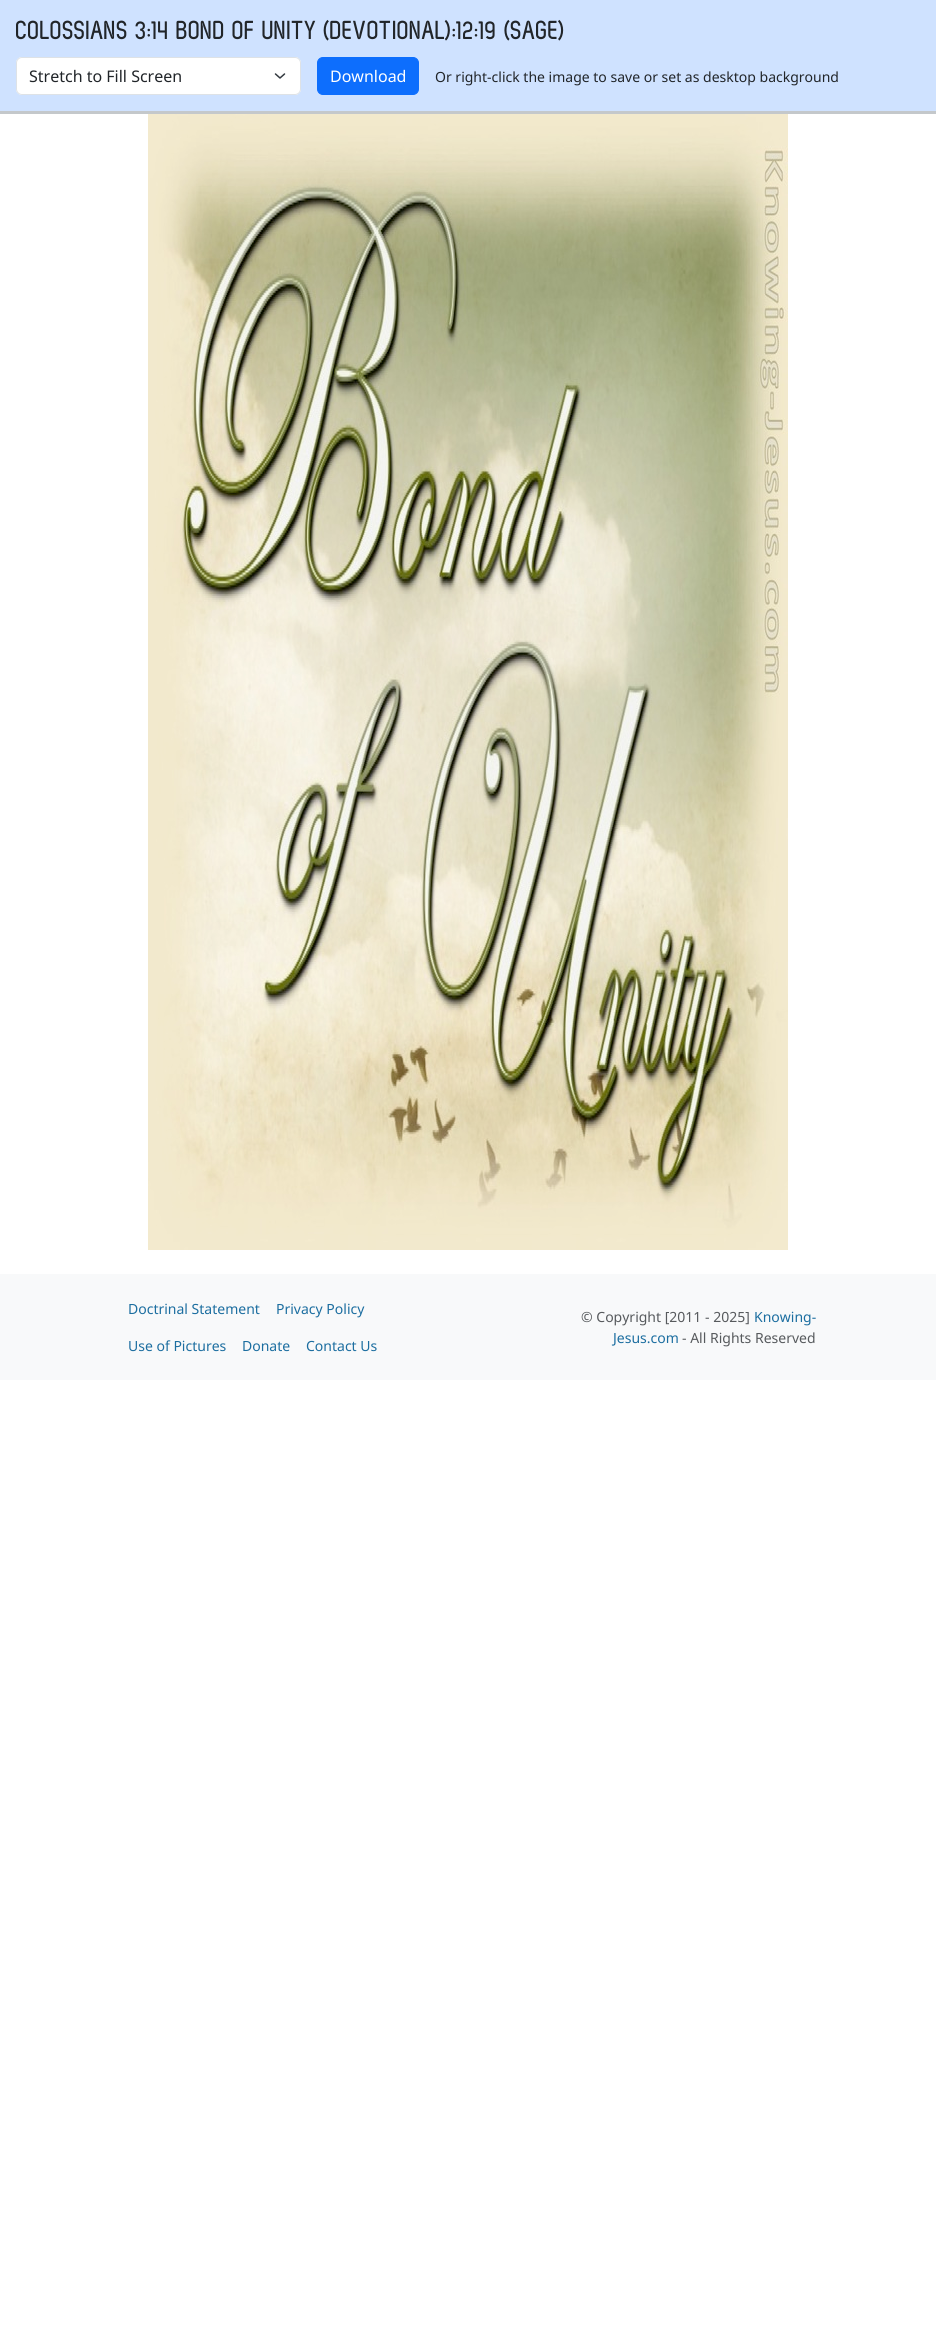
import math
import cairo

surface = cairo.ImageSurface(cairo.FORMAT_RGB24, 936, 2336)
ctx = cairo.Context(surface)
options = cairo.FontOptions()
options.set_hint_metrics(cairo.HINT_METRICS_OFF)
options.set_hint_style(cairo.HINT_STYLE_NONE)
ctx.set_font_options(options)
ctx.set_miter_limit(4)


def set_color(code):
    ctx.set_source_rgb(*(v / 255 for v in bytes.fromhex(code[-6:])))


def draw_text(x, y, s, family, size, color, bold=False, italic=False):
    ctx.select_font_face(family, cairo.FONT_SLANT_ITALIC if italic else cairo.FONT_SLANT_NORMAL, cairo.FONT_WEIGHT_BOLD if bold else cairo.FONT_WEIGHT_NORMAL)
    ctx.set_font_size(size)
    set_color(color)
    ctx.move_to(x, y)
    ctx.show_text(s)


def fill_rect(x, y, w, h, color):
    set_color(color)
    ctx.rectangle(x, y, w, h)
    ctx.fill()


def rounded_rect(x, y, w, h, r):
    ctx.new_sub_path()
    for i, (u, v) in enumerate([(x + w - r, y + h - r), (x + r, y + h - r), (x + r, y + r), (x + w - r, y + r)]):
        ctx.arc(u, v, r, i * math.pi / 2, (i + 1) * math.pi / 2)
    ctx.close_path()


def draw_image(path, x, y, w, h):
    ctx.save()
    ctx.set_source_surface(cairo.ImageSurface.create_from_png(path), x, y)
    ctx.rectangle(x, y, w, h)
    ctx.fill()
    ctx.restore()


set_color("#ffffff")
ctx.paint()
fill_rect(0, 0, 936, 111, "#cfe2ff")
fill_rect(0, 111, 936, 3, "#c4c8cb")
draw_text(16, 39, "COLOSSIANS 3:14 BOND OF UNITY (DEVOTIONAL):12:19 (SAGE)", "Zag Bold", 26, "#212529", bold=True)
set_color("#ffffff")
rounded_rect(16, 57, 285, 38, 6)
ctx.fill()
ctx.new_path()
ctx.move_to(275.5, 74)
ctx.line_to(280, 78)
ctx.line_to(284.5, 74)
set_color("#343a40")
ctx.set_line_width(1.5)
ctx.set_line_cap(cairo.LINE_CAP_ROUND)
ctx.set_line_join(cairo.LINE_JOIN_ROUND)
ctx.stroke()
rounded_rect(16.5, 57.5, 284, 37, 5.5)
set_color("#dee2e6")
ctx.set_line_width(1)
ctx.set_line_cap(cairo.LINE_CAP_BUTT)
ctx.set_line_join(cairo.LINE_JOIN_MITER)
ctx.stroke()
draw_text(29, 82, "Stretch to Fill Screen", "Noto Sans", 16, "#212529")
set_color("#0d6efd")
rounded_rect(317.5, 57.5, 101, 37, 5.5)
ctx.fill_preserve()
ctx.stroke()
draw_text(330, 82, "Download", "Noto Sans", 16, "#ffffff")
draw_text(435, 82, "Or right-click the image to save or set as desktop background", "Noto Sans", 14, "#212529")
draw_image("assets/img1.png", 148, 114, 640, 1136)
fill_rect(0, 1274, 936, 106, "#f8f9fa")
draw_text(128, 1314, "Doctrinal Statement", "Noto Sans", 14, "#1c6ea0")
draw_text(276, 1314, "Privacy Policy", "Noto Sans", 14, "#1c6ea0")
draw_text(128, 1351, "Use of Pictures", "Noto Sans", 14, "#1c6ea0")
draw_text(242, 1351, "Donate", "Noto Sans", 14, "#1c6ea0")
draw_text(306, 1351, "Contact Us", "Noto Sans", 14, "#1c6ea0")
draw_text(581, 1322, "© Copyright [2011 - 2025]", "Noto Sans", 14, "#575a5d")
draw_text(754, 1322, "Knowing-", "Noto Sans", 14, "#1c6ea0")
draw_text(613, 1343, "Jesus.com", "Noto Sans", 14, "#1c6ea0")
draw_text(682, 1343, "- All Rights Reserved", "Noto Sans", 14, "#575a5d")
surface.write_to_png("output.png")
